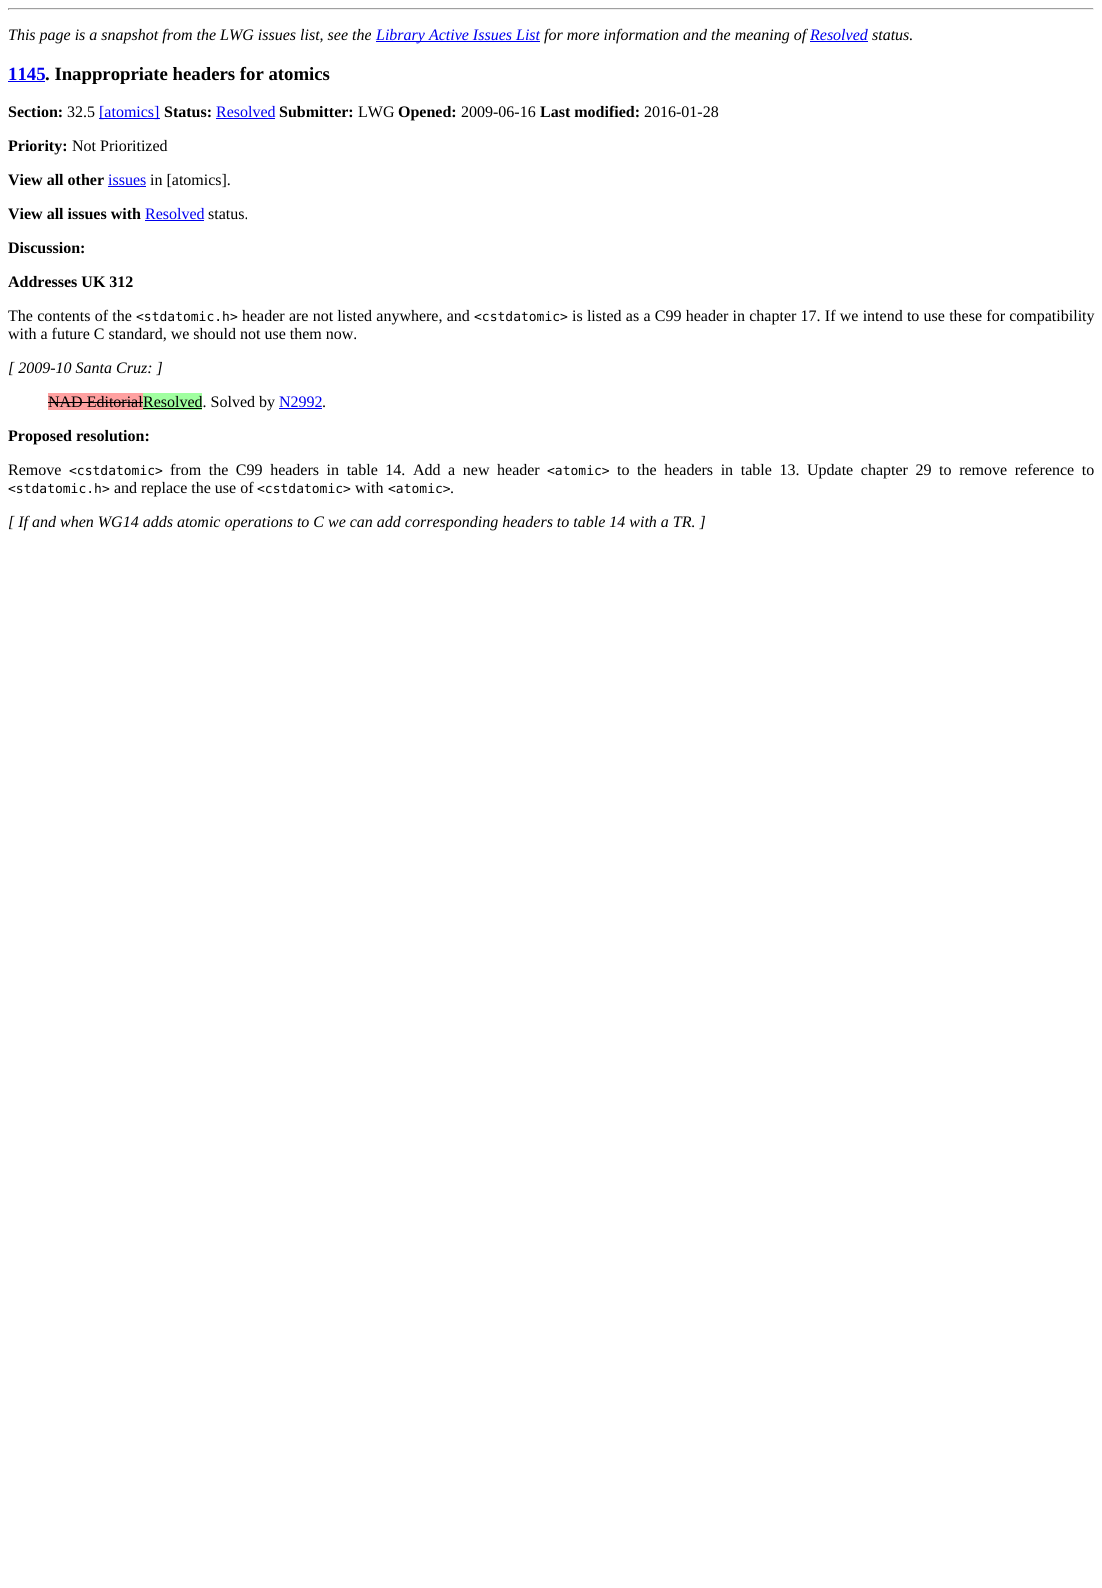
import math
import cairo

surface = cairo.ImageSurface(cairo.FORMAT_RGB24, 1102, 1588)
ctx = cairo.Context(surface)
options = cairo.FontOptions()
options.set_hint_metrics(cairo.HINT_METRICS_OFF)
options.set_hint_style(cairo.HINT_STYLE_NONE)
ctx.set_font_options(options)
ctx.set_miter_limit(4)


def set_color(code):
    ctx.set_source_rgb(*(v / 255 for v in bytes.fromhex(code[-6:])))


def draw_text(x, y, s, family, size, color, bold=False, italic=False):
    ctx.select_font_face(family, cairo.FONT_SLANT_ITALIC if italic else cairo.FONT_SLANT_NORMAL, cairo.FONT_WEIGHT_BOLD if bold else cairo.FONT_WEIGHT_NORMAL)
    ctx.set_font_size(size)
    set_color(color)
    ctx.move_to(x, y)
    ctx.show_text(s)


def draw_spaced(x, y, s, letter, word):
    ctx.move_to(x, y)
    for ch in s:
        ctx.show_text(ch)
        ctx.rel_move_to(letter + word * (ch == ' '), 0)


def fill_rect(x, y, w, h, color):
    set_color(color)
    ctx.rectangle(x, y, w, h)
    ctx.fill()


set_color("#ffffff")
ctx.paint()
fill_rect(8, 8, 1086, 1, "#9f9f9f")
fill_rect(1093, 8, 1, 2, "#eeeeee")
fill_rect(8, 9, 1086, 1, "#eeeeee")
fill_rect(8, 8, 1, 2, "#9f9f9f")
draw_text(8, 40, "This page is a snapshot from the LWG issues list, see the", "Liberation Serif", 16, "#000000", italic=True)
fill_rect(376, 41, 164, 1, "#0000ee")
draw_text(376, 40, "Library Active Issues List", "Liberation Serif", 16, "#0000ee", italic=True)
draw_text(544, 40, "for more information and the meaning of", "Liberation Serif", 16, "#000000", italic=True)
fill_rect(810, 41, 58, 1, "#0000ee")
draw_text(810, 40, "Resolved", "Liberation Serif", 16, "#0000ee", italic=True)
draw_text(872, 40, "status.", "Liberation Serif", 16, "#000000", italic=True)
draw_text(8, 80, "1145", "Liberation Serif", 18.75, "#0000ee", bold=True)
fill_rect(8, 81, 37, 1, "#0000ee")
draw_text(45, 80, ". Inappropriate headers for atomics", "Liberation Serif", 18.75, "#000000", bold=True)
draw_text(8, 117, "Section:", "Liberation Serif", 16, "#000000", bold=True)
draw_text(67, 117, "32.5", "Liberation Serif", 16, "#000000")
fill_rect(99, 118, 61, 1, "#0000ee")
draw_text(99, 117, "[atomics]", "Liberation Serif", 16, "#0000ee")
draw_text(164, 117, "Status:", "Liberation Serif", 16, "#000000", bold=True)
draw_text(216, 117, "Resolved", "Liberation Serif", 16, "#0000ee")
fill_rect(216, 118, 59, 1, "#0000ee")
draw_text(279, 117, "Submitter:", "Liberation Serif", 16, "#000000", bold=True)
draw_text(358, 117, "LWG", "Liberation Serif", 16, "#000000")
draw_text(398, 117, "Opened:", "Liberation Serif", 16, "#000000", bold=True)
draw_text(461, 117, "2009-06-16", "Liberation Serif", 16, "#000000")
draw_text(540, 117, "Last modified:", "Liberation Serif", 16, "#000000", bold=True)
draw_text(644, 117, "2016-01-28", "Liberation Serif", 16, "#000000")
draw_text(8, 151, "Priority:", "Liberation Serif", 16, "#000000", bold=True)
draw_text(72, 151, "Not Prioritized", "Liberation Serif", 16, "#000000")
draw_text(8, 185, "View all other", "Liberation Serif", 16, "#000000", bold=True)
draw_text(108, 185, "issues", "Liberation Serif", 16, "#0000ee")
fill_rect(108, 186, 38, 1, "#0000ee")
draw_text(150, 185, "in [atomics].", "Liberation Serif", 16, "#000000")
draw_text(8, 219, "View all issues with", "Liberation Serif", 16, "#000000", bold=True)
draw_text(145, 219, "Resolved", "Liberation Serif", 16, "#0000ee")
fill_rect(145, 220, 59, 1, "#0000ee")
draw_text(208, 219, "status.", "Liberation Serif", 16, "#000000")
draw_text(8, 253, "Discussion:", "Liberation Serif", 16, "#000000", bold=True)
draw_text(8, 287, "Addresses UK 312", "Liberation Serif", 16, "#000000", bold=True)
ctx.select_font_face("Liberation Serif")
draw_spaced(8, 321, "The contents of the", 0, 0.25)
draw_text(136, 321, "<stdatomic.h>", "DejaVu Sans Mono", 13, "#000000")
ctx.select_font_face("Liberation Serif")
ctx.set_font_size(16)
draw_spaced(242, 321, "header are not listed anywhere, and", 0, 0.25)
draw_text(474, 321, "<cstdatomic>", "DejaVu Sans Mono", 13, "#000000")
ctx.select_font_face("Liberation Serif")
ctx.set_font_size(16)
draw_spaced(572, 321, "is listed as a C99 header in chapter 17. If we intend to use these for compatibility", 0, 0.25)
draw_text(8, 339, "with a future C standard, we should not use them now.", "Liberation Serif", 16, "#000000")
draw_text(8, 373, "[ 2009-10 Santa Cruz: ]", "Liberation Serif", 16, "#000000", italic=True)
fill_rect(48, 393, 95, 17, "#ffa0a0")
draw_text(48, 407, "NAD Editorial", "Liberation Serif", 16, "#000000")
fill_rect(48, 402, 95, 1, "#000000")
fill_rect(143, 393, 59, 17, "#a0ffa0")
fill_rect(143, 408, 59, 1, "#000000")
draw_text(143, 407, "Resolved. Solved by", "Liberation Serif", 16, "#000000")
draw_text(279, 407, "N2992", "Liberation Serif", 16, "#0000ee")
fill_rect(279, 408, 43, 1, "#0000ee")
draw_text(322, 407, ".", "Liberation Serif", 16, "#000000")
draw_text(8, 441, "Proposed resolution:", "Liberation Serif", 16, "#000000", bold=True)
draw_text(8, 475, "Remove", "Liberation Serif", 16, "#000000")
draw_text(69, 475, "<cstdatomic>", "DejaVu Sans Mono", 13, "#000000")
ctx.select_font_face("Liberation Serif")
ctx.set_font_size(16)
draw_spaced(170, 475, "from the C99 headers in table 14. Add a new header", 0, 3.6)
draw_text(547, 475, "<atomic>", "DejaVu Sans Mono", 13, "#000000")
ctx.select_font_face("Liberation Serif")
ctx.set_font_size(16)
draw_spaced(617, 475, "to the headers in table 13. Update chapter 29 to remove reference to", 0, 3.6)
draw_text(8, 493, "<stdatomic.h>", "DejaVu Sans Mono", 13, "#000000")
draw_text(114, 493, "and replace the use of", "Liberation Serif", 16, "#000000")
draw_text(257, 493, "<cstdatomic>", "DejaVu Sans Mono", 13, "#000000")
draw_text(355, 493, "with", "Liberation Serif", 16, "#000000")
draw_text(388, 493, "<atomic>", "DejaVu Sans Mono", 13, "#000000")
draw_text(450, 493, ".", "Liberation Serif", 16, "#000000")
draw_text(8, 527, "[ If and when WG14 adds atomic operations to C we can add corresponding headers to table 14 with a TR. ]", "Liberation Serif", 16, "#000000", italic=True)
surface.write_to_png("output.png")
